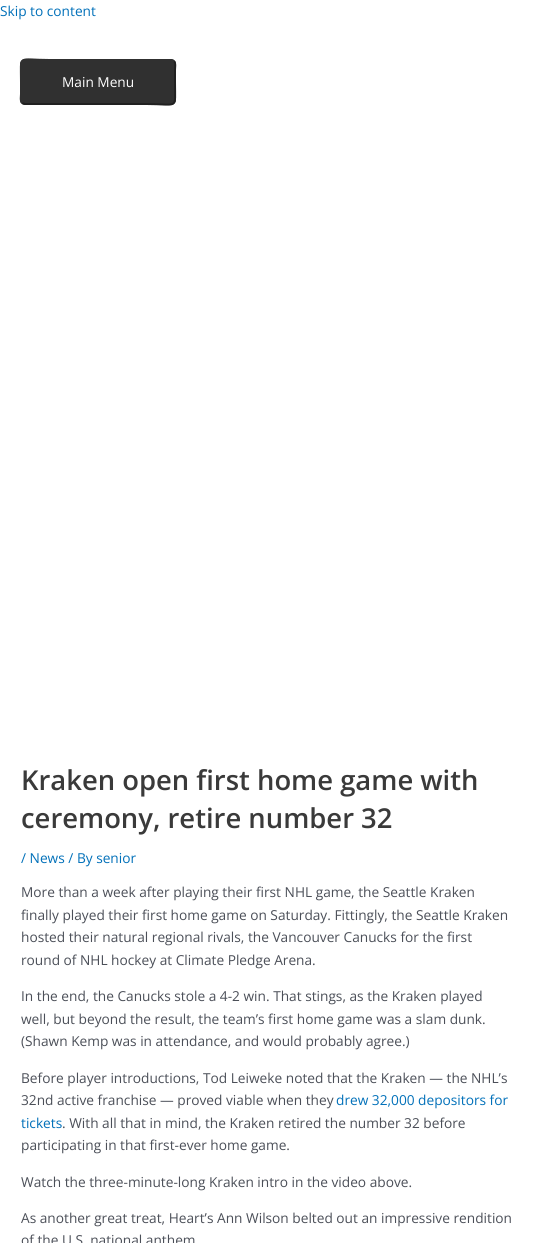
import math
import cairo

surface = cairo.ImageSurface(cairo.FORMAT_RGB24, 534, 1243)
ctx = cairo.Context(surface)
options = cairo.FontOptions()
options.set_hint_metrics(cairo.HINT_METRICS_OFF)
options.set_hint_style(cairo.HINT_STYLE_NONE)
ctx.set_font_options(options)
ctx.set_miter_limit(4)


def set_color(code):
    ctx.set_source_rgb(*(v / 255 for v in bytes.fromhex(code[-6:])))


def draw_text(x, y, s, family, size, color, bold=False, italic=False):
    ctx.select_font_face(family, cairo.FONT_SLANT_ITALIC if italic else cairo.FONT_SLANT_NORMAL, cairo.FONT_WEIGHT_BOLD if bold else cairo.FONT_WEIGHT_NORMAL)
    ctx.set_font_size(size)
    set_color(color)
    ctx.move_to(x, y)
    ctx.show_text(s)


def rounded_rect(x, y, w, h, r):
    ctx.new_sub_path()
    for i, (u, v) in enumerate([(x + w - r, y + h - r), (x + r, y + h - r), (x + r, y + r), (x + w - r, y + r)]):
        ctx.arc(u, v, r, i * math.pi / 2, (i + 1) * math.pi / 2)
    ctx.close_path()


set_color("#ffffff")
ctx.paint()
draw_text(0, 16, "Skip to content", "Open Sans", 13.7, "#0170b9")
set_color("#303030")
rounded_rect(20, 59, 156, 46, 5)
ctx.fill()
ctx.new_path()
ctx.move_to(174, 61)
ctx.curve_to(176, 63.5, 175, 68, 175, 70)
ctx.line_to(175, 82)
ctx.curve_to(175, 110.5, 179, 104, 146.5, 104)
ctx.line_to(25, 104)
ctx.line_to(22, 103)
set_color("#202020")
ctx.stroke()
ctx.new_path()
ctx.move_to(22, 103)
ctx.curve_to(20, 100.5, 21, 96, 21, 94)
ctx.line_to(21, 82)
ctx.curve_to(21, 53.5, 17, 60, 49.5, 60)
ctx.line_to(171, 60)
ctx.line_to(174, 61)
set_color("#303030")
ctx.stroke()
draw_text(62, 87, "Main Menu", "Open Sans", 13.7, "#ffffff")
draw_text(21, 790, "Kraken open first home game with", "Open Sans SemiBold", 27.4, "#3a3a3a")
draw_text(21, 828, "ceremony, retire number 32", "Open Sans SemiBold", 27.4, "#3a3a3a")
draw_text(21, 863, "/ News / By senior", "Open Sans", 13.7, "#0170b9")
draw_text(21, 897, "More than a week after playing their first NHL game, the Seattle Kraken", "Open Sans", 13.7, "#4b4f58")
draw_text(21, 920, "finally played their first home game on Saturday. Fittingly, the Seattle Kraken", "Open Sans", 13.7, "#4b4f58")
draw_text(21, 942, "hosted their natural regional rivals, the Vancouver Canucks for the first", "Open Sans", 13.7, "#4b4f58")
draw_text(21, 965, "round of NHL hockey at Climate Pledge Arena.", "Open Sans", 13.7, "#4b4f58")
draw_text(21, 1001, "In the end, the Canucks stole a 4-2 win. That stings, as the Kraken played", "Open Sans", 13.7, "#4b4f58")
draw_text(21, 1024, "well, but beyond the result, the team’s first home game was a slam dunk.", "Open Sans", 13.7, "#4b4f58")
draw_text(21, 1046, "(Shawn Kemp was in attendance, and would probably agree.)", "Open Sans", 13.7, "#4b4f58")
draw_text(21, 1083, "Before player introductions, Tod Leiweke noted that the Kraken — the NHL’s", "Open Sans", 13.7, "#4b4f58")
draw_text(21, 1105, "32nd active franchise — proved viable when they", "Open Sans", 13.7, "#4b4f58")
draw_text(336, 1105, "drew 32,000 depositors for", "Open Sans", 13.7, "#0170b9")
draw_text(21, 1128, "tickets", "Open Sans", 13.7, "#0170b9")
draw_text(62, 1128, ". With all that in mind, the Kraken retired the number 32 before", "Open Sans", 13.7, "#4b4f58")
draw_text(21, 1150, "participating in that first-ever home game.", "Open Sans", 13.7, "#4b4f58")
draw_text(21, 1187, "Watch the three-minute-long Kraken intro in the video above.", "Open Sans", 13.7, "#4b4f58")
draw_text(21, 1223, "As another great treat, Heart’s Ann Wilson belted out an impressive rendition", "Open Sans", 13.7, "#4b4f58")
draw_text(21, 1245, "of the U.S. national anthem", "Open Sans", 13.7, "#4b4f58")
surface.write_to_png("output.png")
